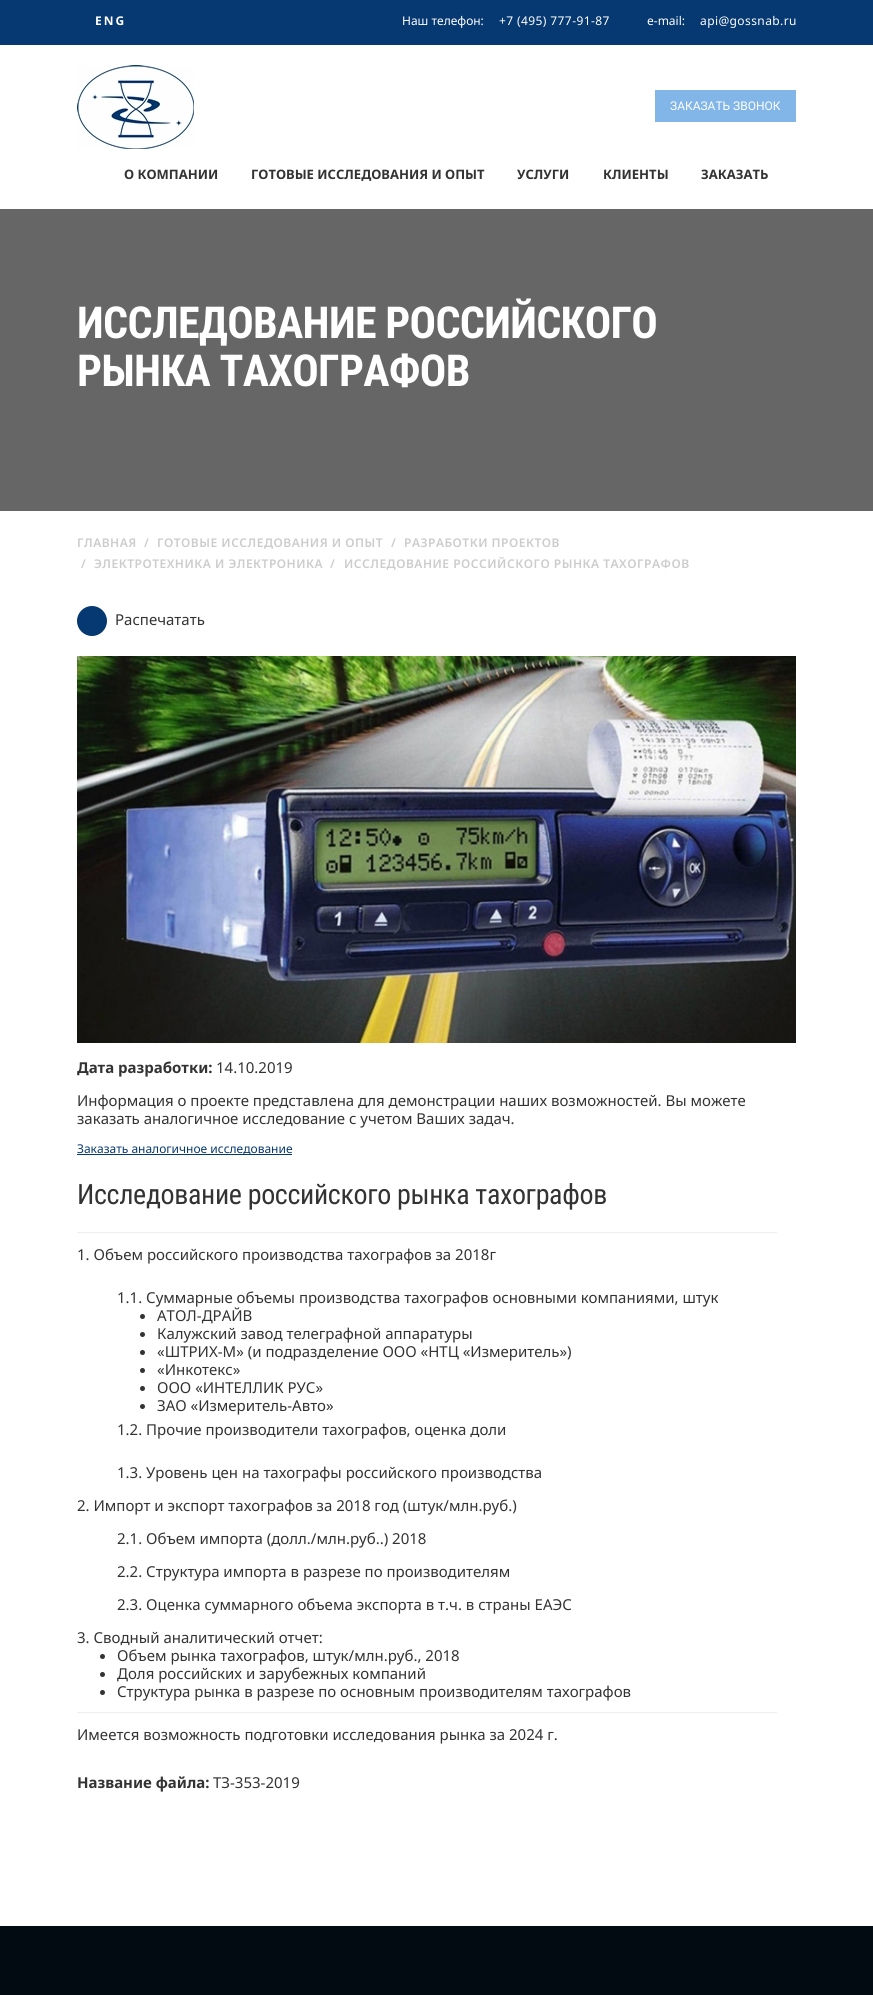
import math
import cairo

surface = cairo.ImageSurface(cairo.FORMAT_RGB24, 873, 1995)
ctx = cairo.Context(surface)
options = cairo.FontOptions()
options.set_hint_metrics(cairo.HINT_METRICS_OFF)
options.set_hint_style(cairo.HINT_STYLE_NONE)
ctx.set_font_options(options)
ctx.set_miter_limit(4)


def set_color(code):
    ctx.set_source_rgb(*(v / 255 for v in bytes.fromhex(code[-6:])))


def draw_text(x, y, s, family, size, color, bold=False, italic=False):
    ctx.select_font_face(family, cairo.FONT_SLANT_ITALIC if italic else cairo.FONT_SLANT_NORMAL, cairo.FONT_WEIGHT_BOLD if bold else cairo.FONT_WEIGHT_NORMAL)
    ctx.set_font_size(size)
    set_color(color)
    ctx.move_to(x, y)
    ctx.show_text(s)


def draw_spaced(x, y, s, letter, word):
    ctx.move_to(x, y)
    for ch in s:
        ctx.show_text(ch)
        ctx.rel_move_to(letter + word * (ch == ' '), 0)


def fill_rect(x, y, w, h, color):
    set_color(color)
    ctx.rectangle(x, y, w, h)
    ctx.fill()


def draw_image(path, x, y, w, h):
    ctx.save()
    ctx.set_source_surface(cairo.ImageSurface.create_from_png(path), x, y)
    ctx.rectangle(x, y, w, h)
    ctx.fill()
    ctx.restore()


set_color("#ffffff")
ctx.paint()
fill_rect(0, 0, 873, 45, "#063971")
ctx.select_font_face("Noto Sans", cairo.FONT_SLANT_NORMAL, cairo.FONT_WEIGHT_BOLD)
ctx.set_font_size(12)
set_color("#ffffff")
draw_spaced(95, 25, "ENG", 2, 0)
draw_text(402, 25, "Наш телефон:", "Noto Sans", 12, "#ffffff")
draw_spaced(499, 25, "+7 (495) 777-91-87", 0.4, 0)
draw_text(647, 25, "e-mail:", "Noto Sans", 12, "#ffffff")
draw_spaced(700, 25, "api@gossnab.ru", 0.4, 0)
draw_image("assets/img1.png", 77, 65, 117, 84)
fill_rect(655, 90, 141, 32, "#82b5e8")
draw_text(670, 110, "ЗАКАЗАТЬ ЗВОНОК", "Roboto", 12, "#ffffff")
draw_text(124, 179, "О КОМПАНИИ", "Noto Sans", 13, "#333333", bold=True)
draw_text(251, 179, "ГОТОВЫЕ ИССЛЕДОВАНИЯ И ОПЫТ", "Noto Sans", 13, "#333333", bold=True)
draw_text(517, 179, "УСЛУГИ", "Noto Sans", 13, "#333333", bold=True)
draw_text(603, 179, "КЛИЕНТЫ", "Noto Sans", 13, "#333333", bold=True)
draw_text(701, 179, "ЗАКАЗАТЬ", "Noto Sans", 13, "#333333", bold=True)
fill_rect(0, 209, 873, 302, "#666666")
ctx.select_font_face("Roboto Condensed", cairo.FONT_SLANT_NORMAL, cairo.FONT_WEIGHT_BOLD)
ctx.set_font_size(44)
set_color("#ffffff")
draw_spaced(77, 338, "ИССЛЕДОВАНИЕ РОССИЙСКОГО", -0.7, 0)
draw_spaced(77, 386, "РЫНКА ТАХОГРАФОВ", -0.7, 0)
ctx.select_font_face("Noto Sans SemiBold")
ctx.set_font_size(12)
set_color("#cccccc")
draw_spaced(77, 547, "ГЛАВНАЯ", 0.5, 0)
draw_spaced(144, 547, "/", 0.5, 0)
draw_spaced(157, 547, "ГОТОВЫЕ ИССЛЕДОВАНИЯ И ОПЫТ", 0.5, 0)
draw_spaced(391, 547, "/", 0.5, 0)
draw_spaced(404, 547, "РАЗРАБОТКИ ПРОЕКТОВ", 0.5, 0)
draw_spaced(81, 568, "/", 0.5, 0)
draw_spaced(94, 568, "ЭЛЕКТРОТЕХНИКА И ЭЛЕКТРОНИКА", 0.5, 0)
draw_spaced(330, 568, "/", 0.5, 0)
draw_spaced(344, 568, "ИССЛЕДОВАНИЕ РОССИЙСКОГО РЫНКА ТАХОГРАФОВ", 0.5, 0)
set_color("#063971")
ctx.new_path()
ctx.arc(92, 621, 15, 0, 2 * math.pi)
ctx.fill()
draw_text(115, 625, "Распечатать", "Noto Sans", 15, "#333333")
draw_image("assets/img2.png", 77, 656, 719, 387)
draw_text(77, 1073, "Дата разработки:", "Noto Sans", 15, "#333333", bold=True)
draw_text(216, 1073, "14.10.2019", "Noto Sans", 15, "#333333")
draw_text(77, 1106, "Информация о проекте представлена для демонстрации наших возможностей. Вы можете", "Noto Sans", 15, "#333333")
draw_text(77, 1124, "заказать аналогичное исследование с учетом Ваших задач.", "Noto Sans", 15, "#333333")
fill_rect(77, 1154, 215, 1, "#063971")
draw_text(77, 1153, "Заказать аналогичное исследование", "Noto Sans", 12, "#063971")
ctx.select_font_face("Roboto Condensed")
ctx.set_font_size(28)
set_color("#333333")
draw_spaced(77, 1204, "Исследование российского рынка тахографов", -0.35, 0)
fill_rect(77, 1232, 700, 1, "#eeeeee")
draw_text(77, 1260, "1. Объем российского производства тахографов за 2018г", "Noto Sans", 15, "#333333")
draw_text(117, 1303, "1.1. Суммарные объемы производства тахографов основными компаниями, штук", "Noto Sans", 15, "#333333")
ctx.new_path()
ctx.arc(142.5, 1316.5, 2.5, 0, 2 * math.pi)
ctx.fill()
draw_text(157, 1321, "АТОЛ-ДРАЙВ", "Noto Sans", 15, "#333333")
ctx.new_path()
ctx.arc(142.5, 1334.5, 2.5, 0, 2 * math.pi)
ctx.fill()
draw_text(157, 1339, "Калужский завод телеграфной аппаратуры", "Noto Sans", 15, "#333333")
ctx.new_path()
ctx.arc(142.5, 1352.5, 2.5, 0, 2 * math.pi)
ctx.fill()
draw_text(157, 1357, "«ШТРИХ-М» (и подразделение ООО «НТЦ «Измеритель»)", "Noto Sans", 15, "#333333")
ctx.new_path()
ctx.arc(142.5, 1370.5, 2.5, 0, 2 * math.pi)
ctx.fill()
draw_text(157, 1375, "«Инкотекс»", "Noto Sans", 15, "#333333")
ctx.new_path()
ctx.arc(142.5, 1388.5, 2.5, 0, 2 * math.pi)
ctx.fill()
draw_text(157, 1393, "ООО «ИНТЕЛЛИК РУС»", "Noto Sans", 15, "#333333")
ctx.new_path()
ctx.arc(142.5, 1406.5, 2.5, 0, 2 * math.pi)
ctx.fill()
draw_text(157, 1411, "ЗАО «Измеритель-Авто»", "Noto Sans", 15, "#333333")
draw_text(117, 1435, "1.2. Прочие производители тахографов, оценка доли", "Noto Sans", 15, "#333333")
draw_text(117, 1478, "1.3. Уровень цен на тахографы российского производства", "Noto Sans", 15, "#333333")
draw_text(77, 1511, "2. Импорт и экспорт тахографов за 2018 год (штук/млн.руб.)", "Noto Sans", 15, "#333333")
draw_text(117, 1544, "2.1. Объем импорта (долл./млн.руб..) 2018", "Noto Sans", 15, "#333333")
draw_text(117, 1577, "2.2. Структура импорта в разрезе по производителям", "Noto Sans", 15, "#333333")
draw_text(117, 1610, "2.3. Оценка суммарного объема экспорта в т.ч. в страны ЕАЭС", "Noto Sans", 15, "#333333")
draw_text(77, 1643, "3. Сводный аналитический отчет:", "Noto Sans", 15, "#333333")
ctx.new_path()
ctx.arc(102.5, 1656.5, 2.5, 0, 2 * math.pi)
ctx.fill()
draw_text(117, 1661, "Объем рынка тахографов, штук/млн.руб., 2018", "Noto Sans", 15, "#333333")
ctx.new_path()
ctx.arc(102.5, 1674.5, 2.5, 0, 2 * math.pi)
ctx.fill()
draw_text(117, 1679, "Доля российских и зарубежных компаний", "Noto Sans", 15, "#333333")
ctx.new_path()
ctx.arc(102.5, 1692.5, 2.5, 0, 2 * math.pi)
ctx.fill()
draw_text(117, 1697, "Структура рынка в разрезе по основным производителям тахографов", "Noto Sans", 15, "#333333")
fill_rect(77, 1712, 700, 1, "#eeeeee")
draw_text(77, 1740, "Имеется возможность подготовки исследования рынка за 2024 г.", "Noto Sans", 15, "#333333")
draw_text(77, 1788, "Название файла:", "Noto Sans", 15, "#333333", bold=True)
draw_text(213, 1788, "ТЗ-353-2019", "Noto Sans", 15, "#333333")
fill_rect(0, 1926, 873, 69, "#020a12")
surface.write_to_png("output.png")
